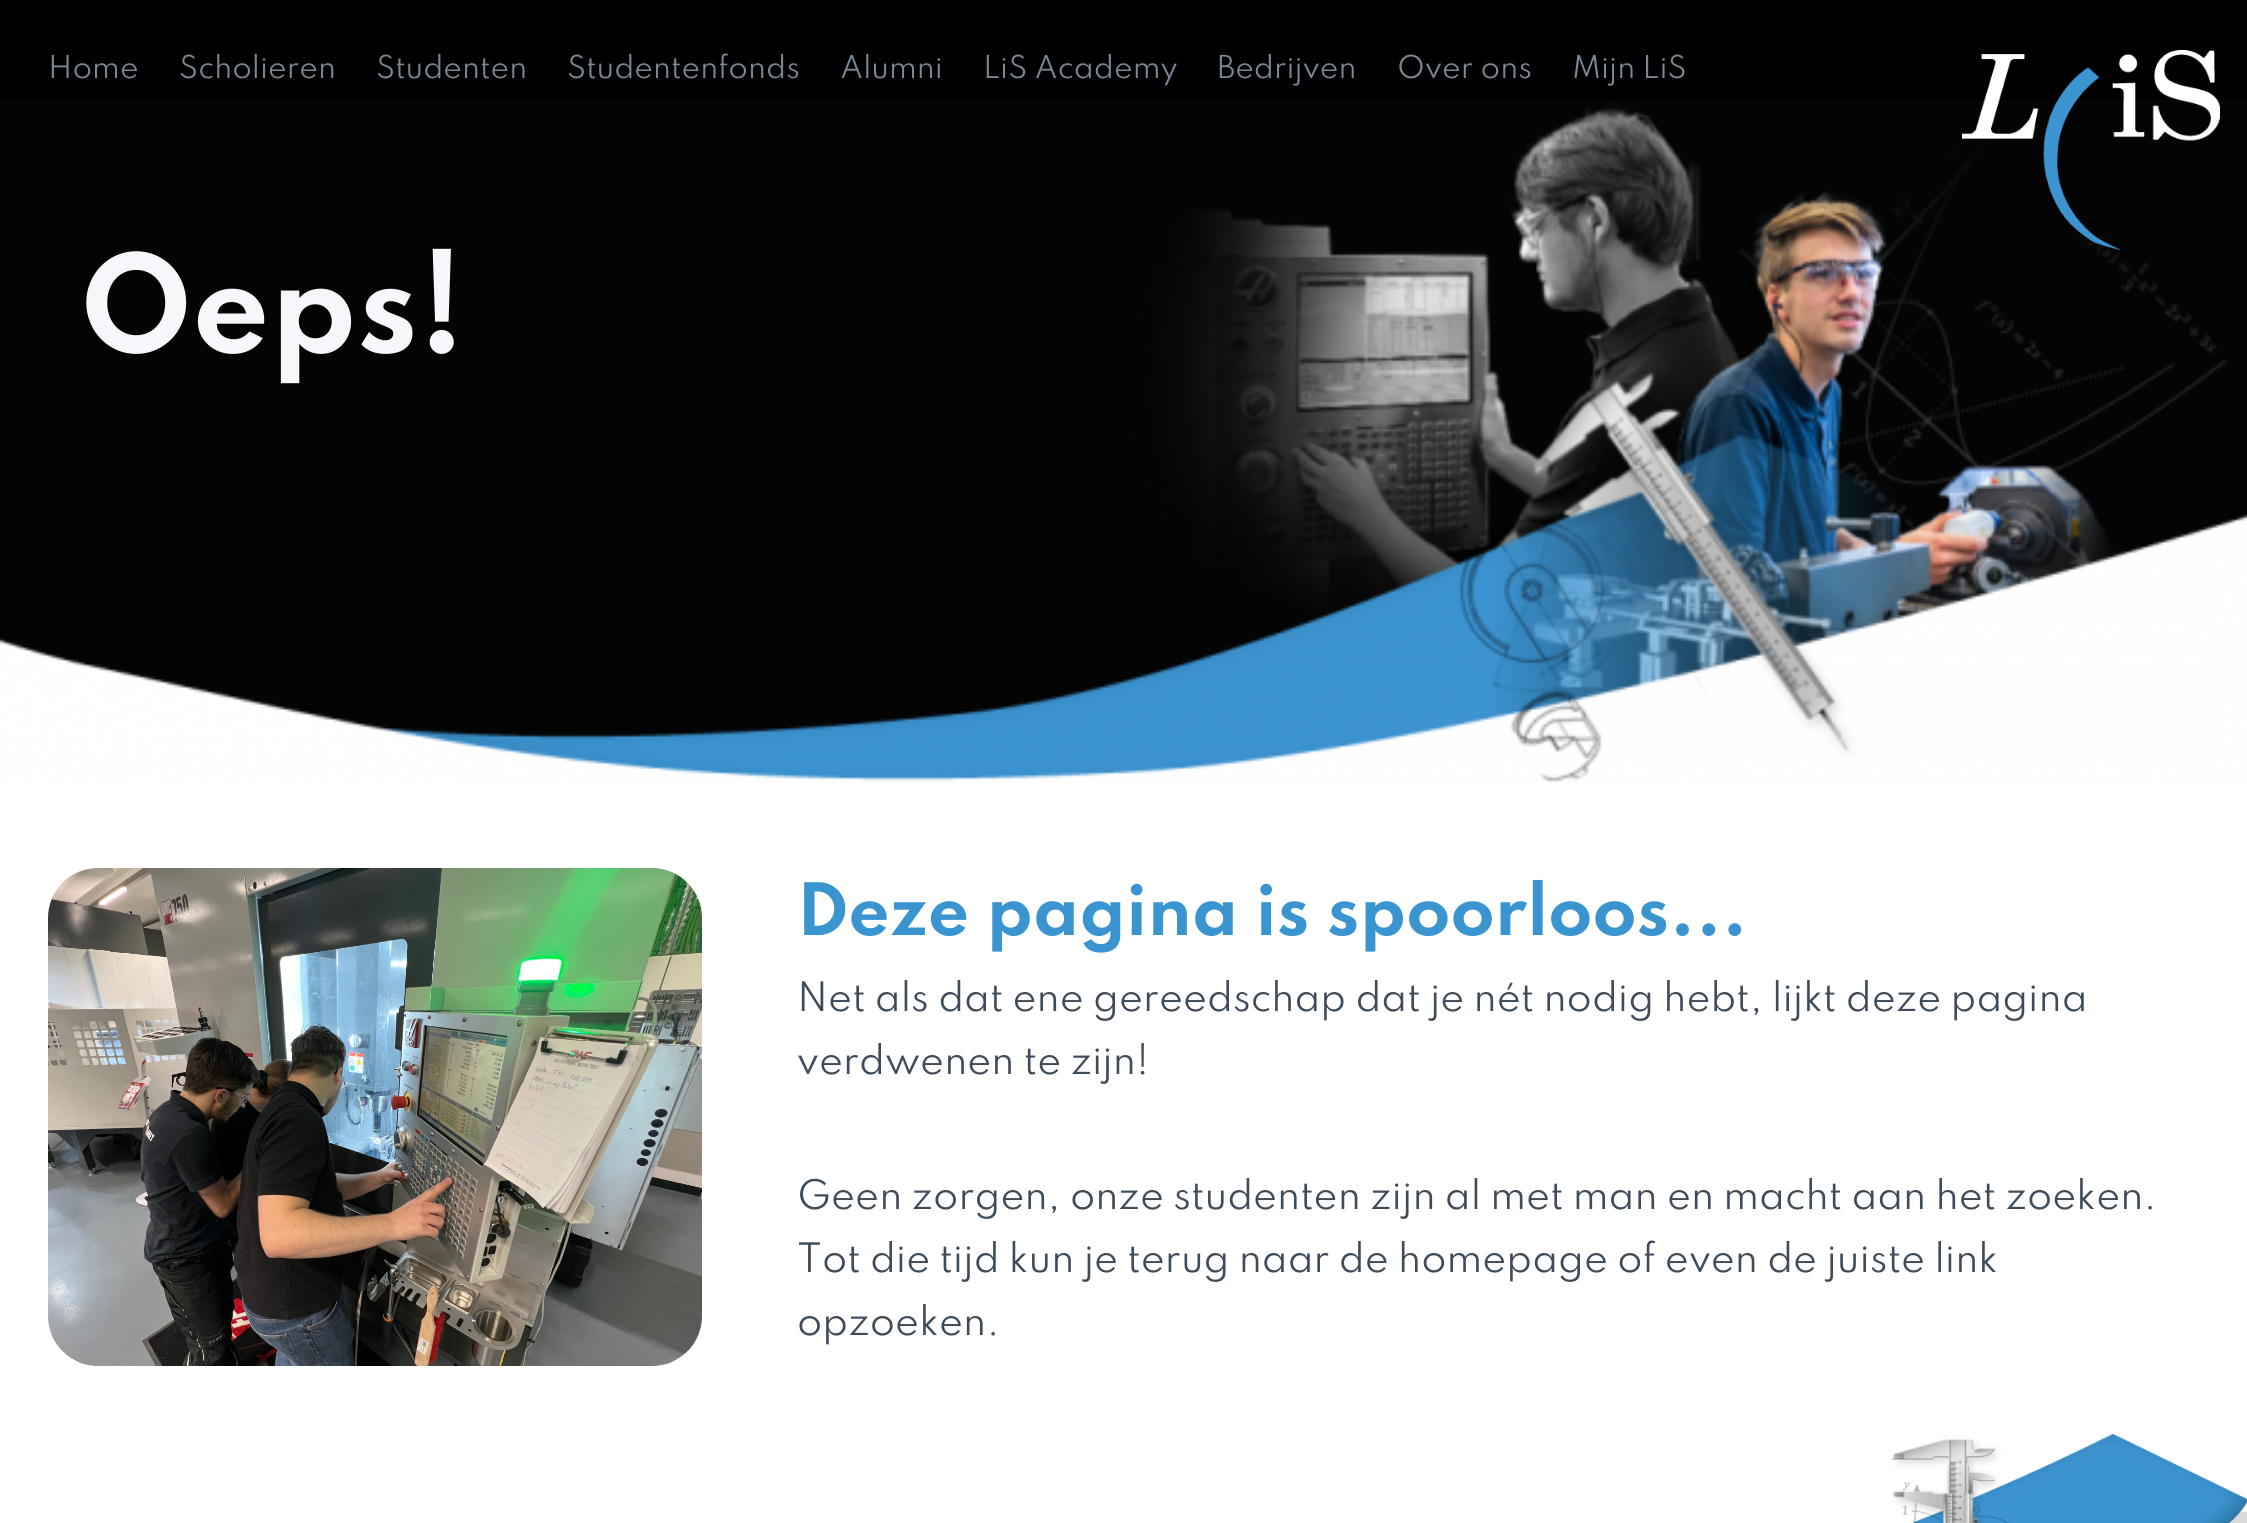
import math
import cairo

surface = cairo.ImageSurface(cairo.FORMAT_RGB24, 2247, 1523)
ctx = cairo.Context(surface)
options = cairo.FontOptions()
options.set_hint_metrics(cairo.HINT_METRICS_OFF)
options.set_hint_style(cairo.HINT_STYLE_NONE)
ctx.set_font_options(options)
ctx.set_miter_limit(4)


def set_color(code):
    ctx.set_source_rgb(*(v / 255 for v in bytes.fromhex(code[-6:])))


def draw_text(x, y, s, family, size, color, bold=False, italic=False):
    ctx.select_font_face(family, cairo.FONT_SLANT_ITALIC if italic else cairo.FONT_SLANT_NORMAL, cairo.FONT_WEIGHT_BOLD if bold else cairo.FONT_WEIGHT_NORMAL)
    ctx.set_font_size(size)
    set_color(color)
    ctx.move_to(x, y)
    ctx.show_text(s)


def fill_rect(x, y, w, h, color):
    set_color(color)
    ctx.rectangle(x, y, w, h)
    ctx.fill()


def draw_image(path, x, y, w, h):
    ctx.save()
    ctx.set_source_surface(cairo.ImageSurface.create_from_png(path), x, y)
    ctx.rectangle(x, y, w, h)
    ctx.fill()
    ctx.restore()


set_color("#ffffff")
ctx.paint()
fill_rect(0, 0, 2247, 100, "#000000")
draw_text(48, 78, "Home", "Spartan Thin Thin", 28, "#7b8794")
draw_text(179, 78, "Scholieren", "Spartan Thin Thin", 28, "#7b8794")
draw_text(376, 78, "Studenten", "Spartan Thin Thin", 28, "#7b8794")
draw_text(567, 78, "Studentenfonds", "Spartan Thin Thin", 28, "#7b8794")
draw_text(840, 78, "Alumni", "Spartan Thin Thin", 28, "#7b8794")
draw_text(983, 78, "LiS Academy", "Spartan Thin Thin", 28, "#7b8794")
draw_text(1217, 78, "Bedrijven", "Spartan Thin Thin", 28, "#7b8794")
draw_text(1397, 78, "Over ons", "Spartan Thin Thin", 28, "#7b8794")
draw_text(1572, 78, "Mijn LiS", "Spartan Thin Thin", 28, "#7b8794")
draw_image("assets/img2.png", 0, 100, 2247, 683)
draw_image("assets/img1.png", 1962, 50, 258, 200)
draw_text(80, 352, "Oeps!", "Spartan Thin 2 Thin", 120, "#f5f7fa")
draw_image("assets/img3.png", 48, 868, 654, 498)
draw_text(797, 935, "Deze pagina is spoorloos...", "Spartan Thin 2 Thin", 64, "#3a94d0")
draw_text(797, 1011, "Net als dat ene gereedschap dat je nét nodig hebt, lijkt deze pagina", "Spartan Thin Thin", 36, "#3e4c59")
draw_text(797, 1074, "verdwenen te zijn!", "Spartan Thin Thin", 36, "#3e4c59")
draw_text(797, 1209, "Geen zorgen, onze studenten zijn al met man en macht aan het zoeken.", "Spartan Thin Thin", 36, "#3e4c59")
draw_text(797, 1272, "Tot die tijd kun je terug naar de homepage of even de juiste link", "Spartan Thin Thin", 36, "#3e4c59")
draw_text(797, 1335, "opzoeken.", "Spartan Thin Thin", 36, "#3e4c59")
draw_image("assets/img4.png", 1891, 1434, 356, 89)
surface.write_to_png("output.png")
